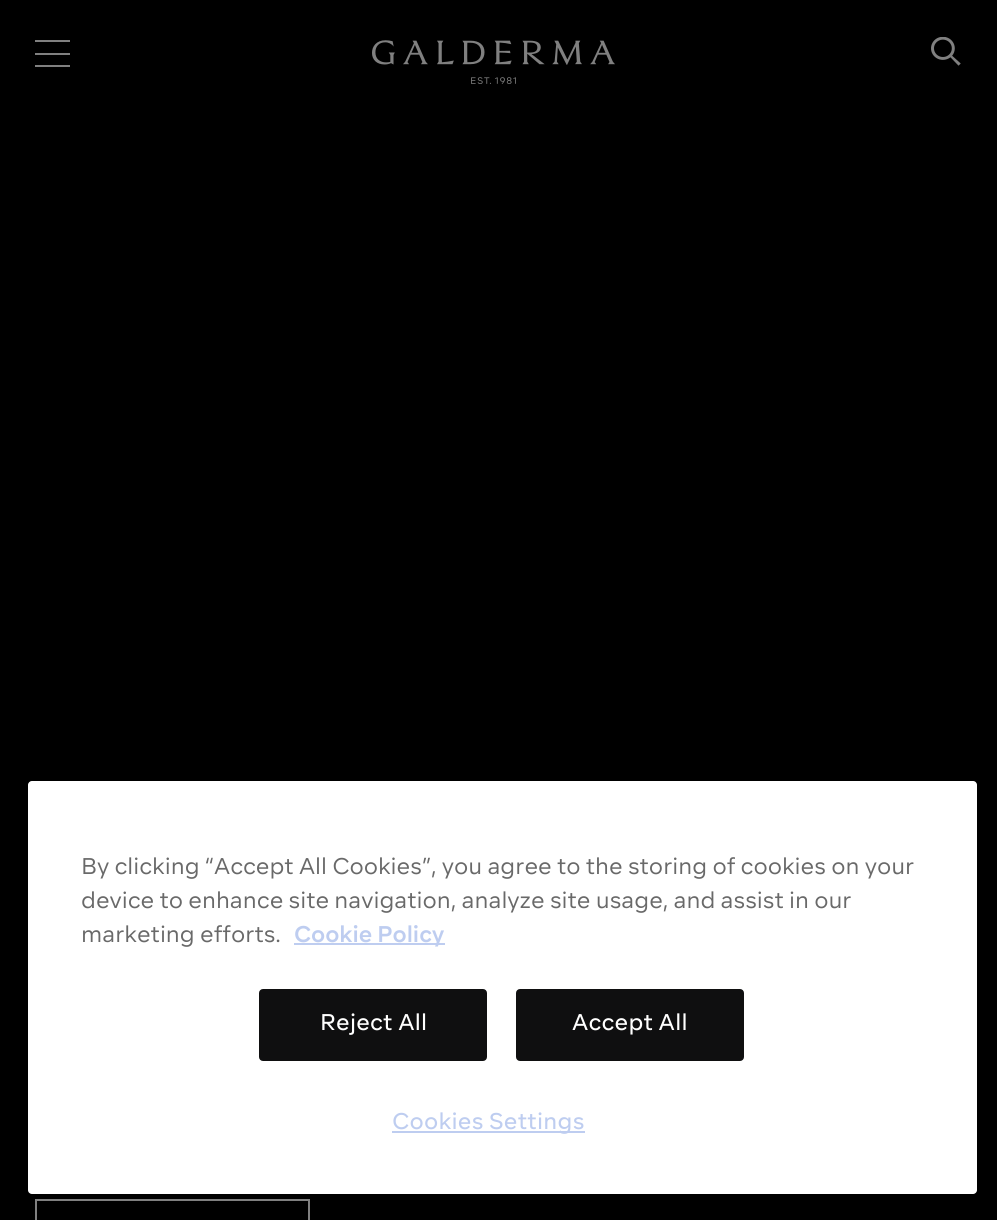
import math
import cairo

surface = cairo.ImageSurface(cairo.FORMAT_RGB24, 997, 1220)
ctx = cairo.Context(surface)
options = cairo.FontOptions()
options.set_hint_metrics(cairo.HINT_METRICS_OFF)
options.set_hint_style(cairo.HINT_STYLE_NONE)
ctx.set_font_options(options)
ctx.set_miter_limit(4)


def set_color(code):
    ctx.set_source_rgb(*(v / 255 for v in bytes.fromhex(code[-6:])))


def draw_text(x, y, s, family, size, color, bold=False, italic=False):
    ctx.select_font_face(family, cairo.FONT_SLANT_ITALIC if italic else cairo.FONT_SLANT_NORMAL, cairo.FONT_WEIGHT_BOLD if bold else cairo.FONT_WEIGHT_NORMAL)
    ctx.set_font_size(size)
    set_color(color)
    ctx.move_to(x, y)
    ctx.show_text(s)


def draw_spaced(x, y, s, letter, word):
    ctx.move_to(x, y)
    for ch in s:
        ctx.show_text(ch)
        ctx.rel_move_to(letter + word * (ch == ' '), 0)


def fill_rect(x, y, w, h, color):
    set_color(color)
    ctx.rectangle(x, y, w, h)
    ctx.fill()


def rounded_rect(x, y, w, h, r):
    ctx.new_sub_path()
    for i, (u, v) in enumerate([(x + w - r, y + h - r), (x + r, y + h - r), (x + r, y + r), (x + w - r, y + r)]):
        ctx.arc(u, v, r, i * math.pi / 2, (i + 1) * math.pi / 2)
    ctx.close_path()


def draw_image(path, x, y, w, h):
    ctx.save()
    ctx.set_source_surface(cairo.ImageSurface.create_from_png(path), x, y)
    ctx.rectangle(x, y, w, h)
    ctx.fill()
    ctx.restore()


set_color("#000000")
ctx.paint()
fill_rect(35, 40, 35, 2, "#808080")
fill_rect(35, 53, 35, 2, "#808080")
fill_rect(35, 65, 35, 2, "#808080")
draw_image("assets/img1.png", 372, 40, 243, 44)
draw_image("assets/img2.png", 931, 37, 30, 29)
ctx.rectangle(36, 1200, 273, 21)
ctx.stroke()
set_color("#ffffff")
rounded_rect(28, 781, 949, 413, 4)
ctx.fill()
draw_text(81, 874, "By clicking “Accept All Cookies”, you agree to the storing of cookies on your", "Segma", 22.75, "#696969")
draw_text(81, 908, "device to enhance site navigation, analyze site usage, and assist in our", "Segma", 22.75, "#696969")
draw_text(81, 942, "marketing efforts.", "Segma", 22.75, "#696969")
fill_rect(294, 943, 151, 2, "#becdf0")
draw_text(294, 942, "Cookie Policy", "Segma SemiBold", 22.75, "#becdf0")
set_color("#0f0f10")
rounded_rect(260, 990, 226, 70, 3)
ctx.fill_preserve()
ctx.stroke()
ctx.select_font_face("Segma Medium")
set_color("#ffffff")
draw_spaced(320, 1030, "Reject All", 0.25, 0)
set_color("#0f0f10")
rounded_rect(517, 990, 226, 70, 3)
ctx.fill_preserve()
ctx.stroke()
set_color("#ffffff")
draw_spaced(572, 1030, "Accept All", 0.25, 0)
fill_rect(392, 1131, 193, 2, "#becdf0")
draw_spaced(392, 1129, "Cookies Settings", 0.25, 0)
surface.write_to_png("output.png")
